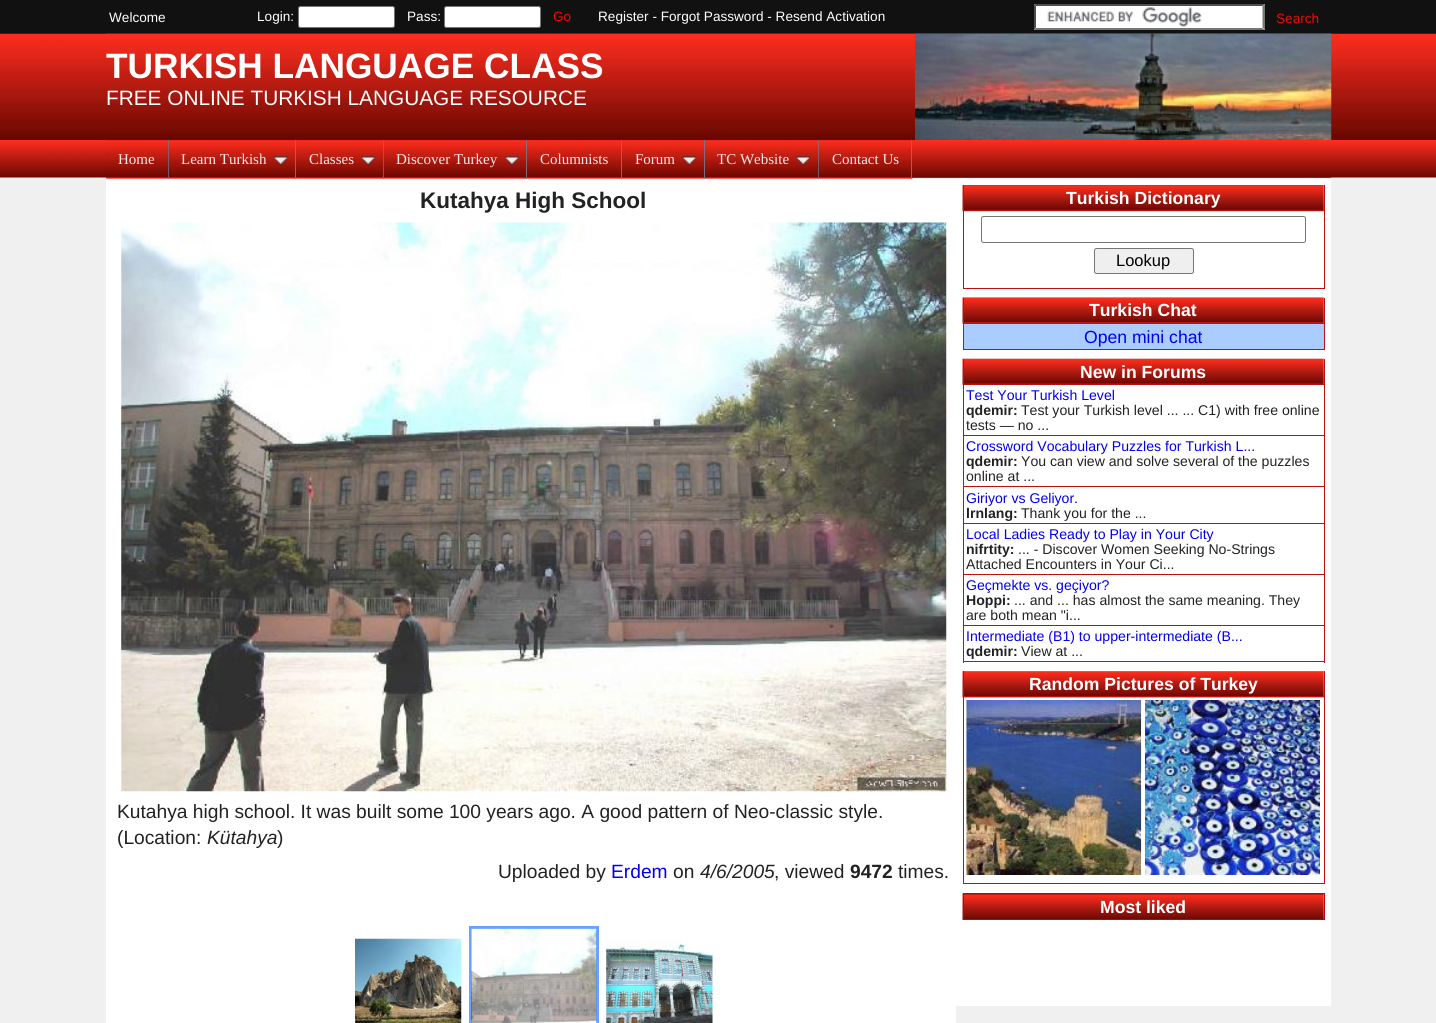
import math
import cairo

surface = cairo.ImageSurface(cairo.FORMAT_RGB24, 1436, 1023)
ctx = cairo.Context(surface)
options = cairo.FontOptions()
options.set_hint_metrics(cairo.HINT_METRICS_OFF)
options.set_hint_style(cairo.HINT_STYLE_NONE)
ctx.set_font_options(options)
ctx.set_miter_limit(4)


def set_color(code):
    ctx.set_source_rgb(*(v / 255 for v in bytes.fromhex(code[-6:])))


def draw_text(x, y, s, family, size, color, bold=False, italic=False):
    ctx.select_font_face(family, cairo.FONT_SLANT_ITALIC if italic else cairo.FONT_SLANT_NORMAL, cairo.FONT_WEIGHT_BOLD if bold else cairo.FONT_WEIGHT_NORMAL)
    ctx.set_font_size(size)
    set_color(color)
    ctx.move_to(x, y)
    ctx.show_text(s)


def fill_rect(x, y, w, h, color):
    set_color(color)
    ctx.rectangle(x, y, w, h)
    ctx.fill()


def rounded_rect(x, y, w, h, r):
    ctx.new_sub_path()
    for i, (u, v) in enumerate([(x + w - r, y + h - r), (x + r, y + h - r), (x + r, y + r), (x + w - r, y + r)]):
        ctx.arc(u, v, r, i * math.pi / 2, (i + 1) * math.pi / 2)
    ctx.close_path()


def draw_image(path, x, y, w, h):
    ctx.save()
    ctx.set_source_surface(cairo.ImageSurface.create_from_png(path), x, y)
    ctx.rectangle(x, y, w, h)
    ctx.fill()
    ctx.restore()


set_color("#f0f0f0")
ctx.paint()
fill_rect(0, 0, 1436, 34, "#111111")
draw_text(109, 22, "Welcome", "Liberation Sans", 13.6, "#ffffff")
draw_text(257, 21, "Login:", "Liberation Sans", 13.6, "#ffffff")
rounded_rect(298.5, 6.5, 96, 21, 2)
ctx.fill_preserve()
set_color("#767676")
ctx.set_line_width(1)
ctx.stroke()
draw_text(407, 21, "Pass:", "Liberation Sans", 13.6, "#ffffff")
rounded_rect(444.5, 6.5, 96, 21, 2)
ctx.fill_preserve()
set_color("#767676")
ctx.stroke()
draw_text(553, 21, "Go", "Liberation Sans", 13.6, "#ff0000")
draw_text(598, 21, "Register - Forgot Password - Resend Activation", "Liberation Sans", 13.6, "#ffffff")
fill_rect(1034, 4, 231, 26, "#ffffff")
draw_image("assets/img1.png", 1047, 7, 155, 20)
set_color("#4f4f4f")
ctx.new_path()
ctx.move_to(1034, 4)
ctx.line_to(1265, 4)
ctx.line_to(1262, 6)
ctx.line_to(1036, 6)
ctx.close_path()
ctx.fill()
set_color("#767676")
ctx.new_path()
ctx.move_to(1265, 4)
ctx.line_to(1265, 30)
ctx.line_to(1262.5, 27.5)
ctx.line_to(1262.5, 6)
ctx.close_path()
ctx.fill()
ctx.new_path()
ctx.move_to(1265, 30)
ctx.line_to(1034, 30)
ctx.line_to(1036, 28)
ctx.line_to(1262, 28)
ctx.close_path()
ctx.fill()
set_color("#4f4f4f")
ctx.new_path()
ctx.move_to(1034, 30)
ctx.line_to(1034, 4)
ctx.line_to(1036, 6)
ctx.line_to(1036, 27.5)
ctx.close_path()
ctx.fill()
draw_text(1276, 23, "Search", "Liberation Sans", 13.6, "#ff0000")
draw_image("assets/img2.png", 0, 33, 1436, 107)
draw_image("assets/img3.png", 106, 33, 1226, 1)
draw_text(106, 78, "TURKISH LANGUAGE CLASS", "Liberation Sans", 35.25, "#ffffff", bold=True)
draw_text(106, 105, "FREE ONLINE TURKISH LANGUAGE RESOURCE", "Liberation Sans", 20.8, "#ffffff")
draw_image("assets/img4.png", 915, 33, 417, 107)
draw_image("assets/img5.png", 0, 140, 1436, 38)
draw_image("assets/img6.png", 106, 177, 1226, 1)
draw_image("assets/img7.png", 106, 177, 1226, 1)
draw_image("assets/img8.png", 106, 140, 63, 39)
ctx.set_source_rgba(0.467, 0.467, 0.533, 0.9)
ctx.rectangle(168, 140, 1, 39)
ctx.fill()
draw_text(118, 164, "Home", "Liberation Serif", 15, "#f7e8e7")
draw_image("assets/img9.png", 168, 140, 129, 39)
ctx.set_source_rgba(0.467, 0.467, 0.533, 0.9)
ctx.rectangle(295, 140, 1, 39)
ctx.fill()
draw_text(181, 164, "Learn Turkish", "Liberation Serif", 15, "#f7e8e7")
draw_image("assets/img10.png", 273, 156, 15, 9)
draw_image("assets/img11.png", 296, 140, 88, 39)
ctx.set_source_rgba(0.467, 0.467, 0.533, 0.9)
ctx.rectangle(383, 140, 1, 39)
ctx.fill()
draw_text(309, 164, "Classes", "Liberation Serif", 15, "#f7e8e7")
draw_image("assets/img12.png", 361, 156, 14, 9)
draw_image("assets/img13.png", 383, 140, 145, 39)
ctx.set_source_rgba(0.467, 0.467, 0.533, 0.9)
ctx.rectangle(526, 140, 1, 39)
ctx.fill()
draw_text(396, 164, "Discover Turkey", "Liberation Serif", 15, "#f7e8e7")
draw_image("assets/img14.png", 505, 156, 14, 9)
draw_image("assets/img15.png", 527, 140, 96, 39)
ctx.set_source_rgba(0.467, 0.467, 0.533, 0.9)
ctx.rectangle(621, 140, 1, 39)
ctx.fill()
draw_text(540, 164, "Columnists", "Liberation Serif", 15, "#f7e8e7")
draw_image("assets/img16.png", 622, 140, 83, 39)
ctx.set_source_rgba(0.467, 0.467, 0.533, 0.9)
ctx.rectangle(704, 140, 1, 39)
ctx.fill()
draw_text(635, 164, "Forum", "Liberation Serif", 15, "#f7e8e7")
draw_image("assets/img17.png", 682, 156, 15, 9)
draw_image("assets/img18.png", 705, 140, 114, 39)
ctx.set_source_rgba(0.467, 0.467, 0.533, 0.9)
ctx.rectangle(818, 140, 1, 39)
ctx.fill()
draw_text(717, 164, "TC Website", "Liberation Serif", 15, "#f7e8e7")
draw_image("assets/img19.png", 796, 156, 14, 9)
draw_image("assets/img20.png", 818, 140, 95, 39)
ctx.set_source_rgba(0.467, 0.467, 0.533, 0.9)
ctx.rectangle(911, 140, 1, 39)
ctx.fill()
draw_text(832, 164, "Contact Us", "Liberation Serif", 15, "#f7e8e7")
fill_rect(106, 179, 850, 844, "#ffffff")
draw_text(420, 208, "Kutahya High School", "Liberation Sans", 22.5, "#222222", bold=True)
draw_image("assets/img21.png", 121, 222, 826, 570)
draw_text(117, 818, "Kutahya high school. It was built some 100 years ago. A good pattern of Neo-classic style.", "Liberation Sans", 19.2, "#222222")
draw_text(117, 844, "(Location:", "Liberation Sans", 19.2, "#222222")
draw_text(207, 844, "Kütahya", "Liberation Sans", 19.2, "#222222", italic=True)
draw_text(277, 844, ")", "Liberation Sans", 19.2, "#222222")
draw_text(498, 878, "Uploaded by", "Liberation Sans", 19.2, "#222222")
draw_text(611, 878, "Erdem", "Liberation Sans", 19.2, "#0000ee")
draw_text(673, 878, "on", "Liberation Sans", 19.2, "#222222")
draw_text(700, 878, "4/6/2005", "Liberation Sans", 19.2, "#222222", italic=True)
draw_text(774, 878, ", viewed", "Liberation Sans", 19.2, "#222222")
draw_text(850, 878, "9472", "Liberation Sans", 19.2, "#222222", bold=True)
draw_text(898, 878, "times.", "Liberation Sans", 19.2, "#222222")
draw_image("assets/img22.png", 355, 938, 107, 85)
ctx.rectangle(470.5, 927.5, 127, 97)
set_color("#66a3ff")
ctx.set_line_width(3)
ctx.stroke()
draw_image("assets/img23.png", 471, 928, 126, 95)
draw_image("assets/img24.png", 606, 939, 107, 84)
fill_rect(956, 179, 375, 827, "#ffffff")
draw_image("assets/img25.png", 962, 185, 362, 27)
draw_text(1066, 204, "Turkish Dictionary", "Liberation Sans", 17.6, "#ffffff", bold=True)
fill_rect(963, 210, 362, 1, "#bb1111")
fill_rect(1324, 185, 1, 104, "#bb1111")
fill_rect(963, 288, 362, 1, "#bb1111")
fill_rect(963, 185, 1, 104, "#bb1111")
rounded_rect(981.5, 216.5, 324, 26, 2)
set_color("#767676")
ctx.set_line_width(1)
ctx.stroke()
set_color("#efefef")
rounded_rect(1094.5, 248.5, 99, 25, 2)
ctx.fill_preserve()
set_color("#767676")
ctx.stroke()
draw_text(1116, 266, "Lookup", "Liberation Sans", 16.5, "#000000")
draw_image("assets/img26.png", 962, 297, 362, 27)
draw_text(1089, 316, "Turkish Chat", "Liberation Sans", 17.6, "#ffffff", bold=True)
fill_rect(964, 324, 360, 25, "#aaccff")
fill_rect(963, 323, 362, 1, "#bb1111")
fill_rect(1324, 298, 1, 52, "#bb1111")
fill_rect(963, 349, 362, 1, "#bb1111")
fill_rect(963, 298, 1, 52, "#bb1111")
draw_text(1084, 343, "Open mini chat", "Liberation Sans", 17.6, "#0000ee")
draw_image("assets/img27.png", 962, 358, 362, 27)
draw_text(1080, 378, "New in Forums", "Liberation Sans", 17.6, "#ffffff", bold=True)
fill_rect(963, 384, 362, 1, "#bb1111")
fill_rect(963, 435, 362, 1, "#bb1111")
fill_rect(963, 486, 362, 1, "#bb1111")
fill_rect(963, 523, 362, 1, "#bb1111")
fill_rect(963, 574, 362, 1, "#bb1111")
fill_rect(963, 625, 362, 1, "#bb1111")
fill_rect(1324, 625, 1, 38, "#bb1111")
fill_rect(1324, 574, 1, 52, "#bb1111")
fill_rect(1324, 523, 1, 52, "#bb1111")
fill_rect(1324, 486, 1, 38, "#bb1111")
fill_rect(1324, 435, 1, 53, "#bb1111")
fill_rect(1324, 359, 1, 77, "#bb1111")
fill_rect(963, 661, 362, 1, "#bb1111")
fill_rect(963, 625, 1, 38, "#bb1111")
fill_rect(963, 574, 1, 52, "#bb1111")
fill_rect(963, 523, 1, 52, "#bb1111")
fill_rect(963, 486, 1, 38, "#bb1111")
fill_rect(963, 435, 1, 53, "#bb1111")
fill_rect(963, 359, 1, 77, "#bb1111")
draw_text(966, 400, "Test Your Turkish Level", "Liberation Sans", 14.1, "#0000ee")
draw_text(966, 415, "qdemir:", "Liberation Sans", 14.1, "#222222", bold=True)
draw_text(1021, 415, "Test your Turkish level ... ... C1) with free online", "Liberation Sans", 14.1, "#222222")
draw_text(966, 430, "tests — no ...", "Liberation Sans", 14.1, "#222222")
draw_text(966, 451, "Crossword Vocabulary Puzzles for Turkish L...", "Liberation Sans", 14.1, "#0000ee")
draw_text(966, 466, "qdemir:", "Liberation Sans", 14.1, "#222222", bold=True)
draw_text(1021, 466, "You can view and solve several of the puzzles", "Liberation Sans", 14.1, "#222222")
draw_text(966, 481, "online at ...", "Liberation Sans", 14.1, "#222222")
draw_text(966, 503, "Giriyor vs Geliyor.", "Liberation Sans", 14.1, "#0000ee")
draw_text(966, 518, "lrnlang:", "Liberation Sans", 14.1, "#222222", bold=True)
draw_text(1021, 518, "Thank you for the ...", "Liberation Sans", 14.1, "#222222")
draw_text(966, 539, "Local Ladies Ready to Play in Your City", "Liberation Sans", 14.1, "#0000ee")
draw_text(966, 554, "nifrtity:", "Liberation Sans", 14.1, "#222222", bold=True)
draw_text(1018, 554, "... - Discover Women Seeking No-Strings", "Liberation Sans", 14.1, "#222222")
draw_text(966, 569, "Attached Encounters in Your Ci...", "Liberation Sans", 14.1, "#222222")
draw_text(966, 590, "Geçmekte vs. geçiyor?", "Liberation Sans", 14.1, "#0000ee")
draw_text(966, 605, "Hoppi:", "Liberation Sans", 14.1, "#222222", bold=True)
draw_text(1014, 605, "... and ... has almost the same meaning. They", "Liberation Sans", 14.1, "#222222")
draw_text(966, 620, "are both mean \"i...", "Liberation Sans", 14.1, "#222222")
draw_text(966, 641, "Intermediate (B1) to upper-intermediate (B...", "Liberation Sans", 14.1, "#0000ee")
draw_text(966, 656, "qdemir:", "Liberation Sans", 14.1, "#222222", bold=True)
draw_text(1021, 656, "View at ...", "Liberation Sans", 14.1, "#222222")
draw_image("assets/img30.png", 962, 671, 362, 27)
fill_rect(963, 696, 362, 1, "#bb1111")
fill_rect(1324, 671, 1, 213, "#bb1111")
fill_rect(963, 883, 362, 1, "#bb1111")
fill_rect(963, 671, 1, 213, "#bb1111")
draw_image("assets/img28.png", 966, 700, 176, 175)
draw_image("assets/img29.png", 1145, 700, 175, 175)
draw_text(1029, 690, "Random Pictures of Turkey", "Liberation Sans", 17.6, "#ffffff", bold=True)
draw_image("assets/img31.png", 962, 893, 362, 27)
fill_rect(963, 893, 362, 1, "#cc0000")
fill_rect(1324, 893, 1, 27, "#cc0000")
fill_rect(963, 919, 362, 1, "#cc0000")
fill_rect(963, 893, 1, 27, "#cc0000")
draw_text(1100, 913, "Most liked", "Liberation Sans", 17.6, "#ffffff", bold=True)
surface.write_to_png("output.png")
